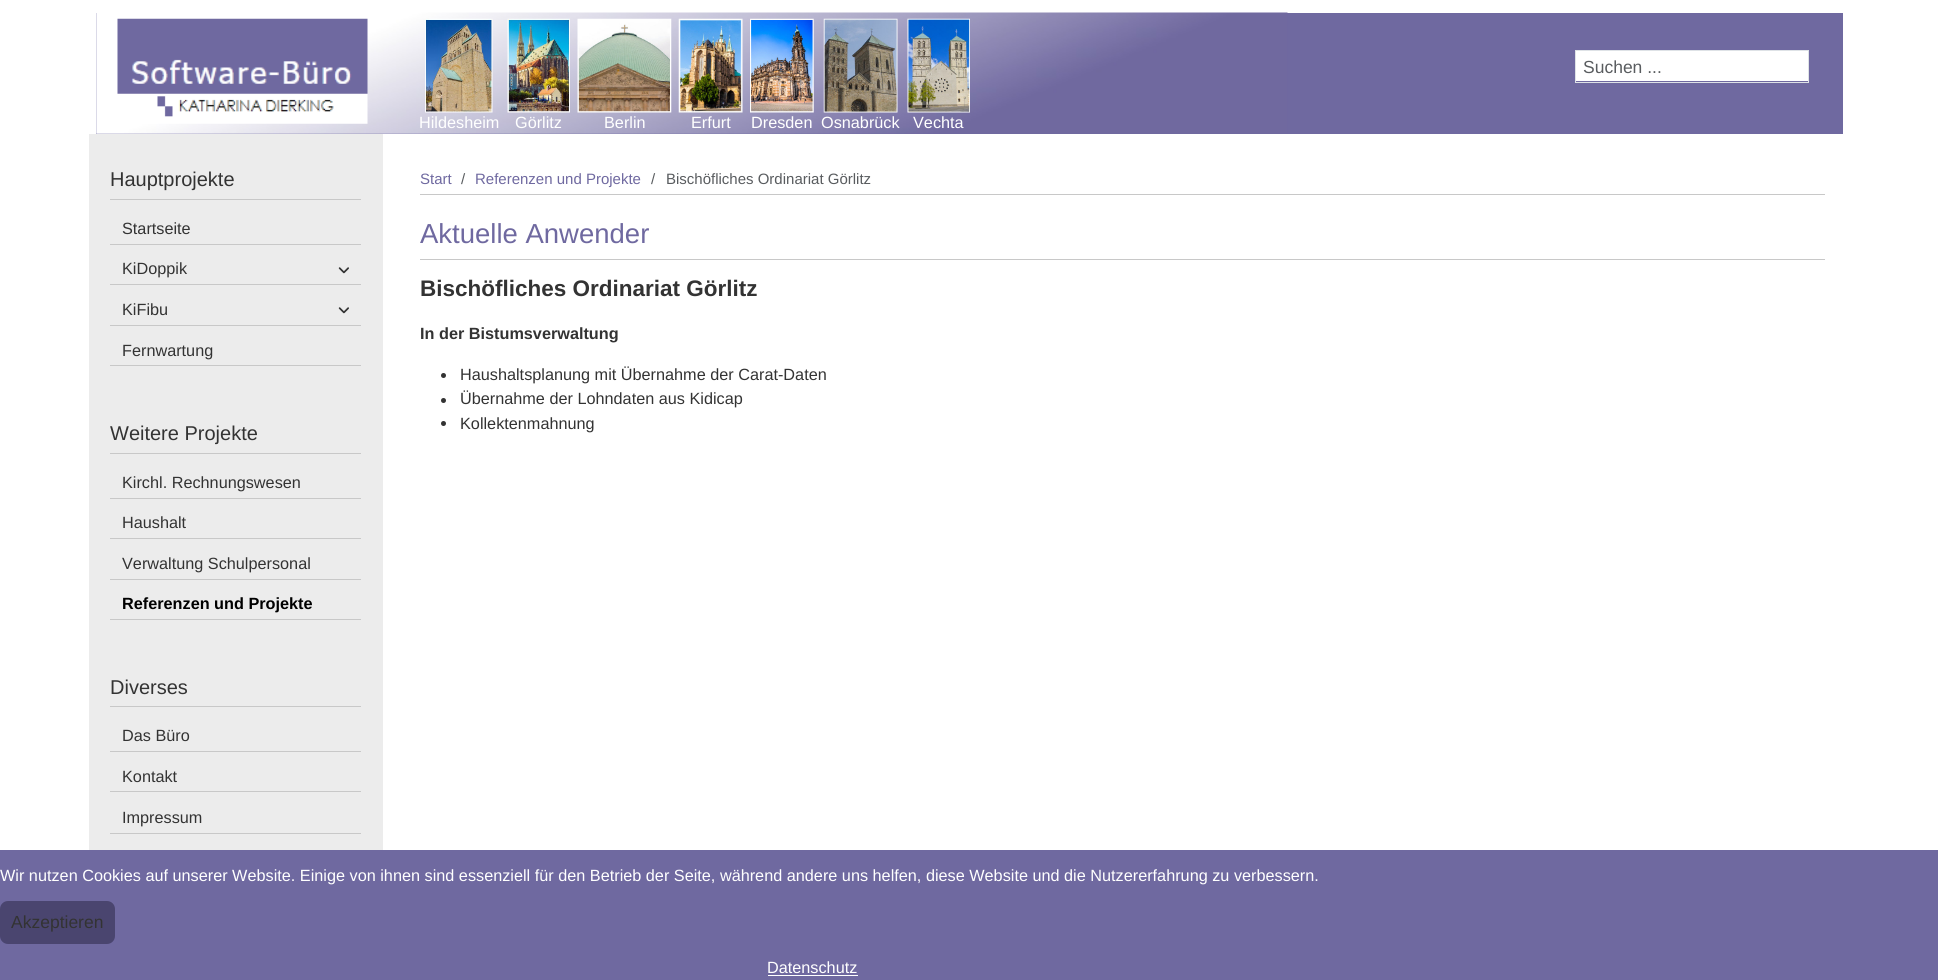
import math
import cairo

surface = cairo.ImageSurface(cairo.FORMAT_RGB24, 1938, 980)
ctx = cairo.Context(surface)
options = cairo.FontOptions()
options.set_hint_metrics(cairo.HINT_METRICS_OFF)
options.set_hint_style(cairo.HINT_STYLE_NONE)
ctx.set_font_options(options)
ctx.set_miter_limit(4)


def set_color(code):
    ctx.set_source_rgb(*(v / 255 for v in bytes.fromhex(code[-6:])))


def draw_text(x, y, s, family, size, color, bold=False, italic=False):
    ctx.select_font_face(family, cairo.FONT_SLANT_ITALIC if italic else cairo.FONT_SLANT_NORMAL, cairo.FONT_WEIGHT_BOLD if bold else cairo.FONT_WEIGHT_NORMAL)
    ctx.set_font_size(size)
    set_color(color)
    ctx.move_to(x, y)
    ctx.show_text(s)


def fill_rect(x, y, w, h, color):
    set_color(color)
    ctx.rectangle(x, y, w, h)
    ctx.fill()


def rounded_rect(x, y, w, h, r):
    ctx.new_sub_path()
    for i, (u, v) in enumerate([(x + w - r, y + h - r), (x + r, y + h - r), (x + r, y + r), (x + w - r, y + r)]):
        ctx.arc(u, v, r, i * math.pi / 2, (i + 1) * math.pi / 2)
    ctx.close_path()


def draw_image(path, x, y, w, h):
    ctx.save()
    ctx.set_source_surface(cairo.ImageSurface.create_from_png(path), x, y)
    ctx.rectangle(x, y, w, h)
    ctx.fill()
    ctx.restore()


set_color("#ffffff")
ctx.paint()
fill_rect(96, 13, 1747, 121, "#6f69a0")
draw_image("assets/img1.png", 96, 12, 1192, 122)
draw_image("assets/img2.png", 117, 18, 251, 106)
fill_rect(1576, 51, 232, 30, "#ffffff")
ctx.rectangle(1575.5, 50.5, 233, 32)
set_color("#dee2e6")
ctx.set_line_width(1)
ctx.stroke()
draw_text(1583, 73, "Suchen ...", "Liberation Sans", 17.5, "#595c5f")
draw_image("assets/img3.png", 425, 18, 68, 95)
draw_text(419, 128, "Hildesheim", "Liberation Sans", 16.25, "#ffffff")
draw_image("assets/img4.png", 507, 18, 63, 95)
draw_text(515, 128, "Görlitz", "Liberation Sans", 16.25, "#ffffff")
draw_image("assets/img5.png", 577, 18, 95, 95)
draw_text(604, 128, "Berlin", "Liberation Sans", 16.25, "#ffffff")
draw_image("assets/img6.png", 678, 18, 65, 95)
draw_text(691, 128, "Erfurt", "Liberation Sans", 16.25, "#ffffff")
draw_image("assets/img7.png", 750, 18, 64, 95)
draw_text(751, 128, "Dresden", "Liberation Sans", 16.25, "#ffffff")
draw_image("assets/img8.png", 823, 18, 75, 95)
draw_text(821, 128, "Osnabrück", "Liberation Sans", 16.25, "#ffffff")
draw_image("assets/img9.png", 907, 18, 63, 95)
draw_text(913, 128, "Vechta", "Liberation Sans", 16.25, "#ffffff")
fill_rect(89, 134, 294, 716, "#ececec")
fill_rect(110, 199, 251, 1, "#c8c8c8")
draw_text(110, 186, "Hauptprojekte", "Liberation Sans", 20, "#333333")
fill_rect(110, 244, 251, 1, "#c8c8c8")
draw_text(122, 234, "Startseite", "Liberation Sans", 16.25, "#333333")
fill_rect(110, 284, 251, 1, "#c8c8c8")
draw_text(122, 274, "KiDoppik", "Liberation Sans", 16.25, "#333333")
draw_image("assets/img10.png", 338, 267, 11, 7)
fill_rect(110, 325, 251, 1, "#c8c8c8")
draw_text(122, 315, "KiFibu", "Liberation Sans", 16.25, "#333333")
draw_image("assets/img10.png", 338, 307, 11, 7)
fill_rect(110, 365, 251, 1, "#c8c8c8")
draw_text(122, 356, "Fernwartung", "Liberation Sans", 16.25, "#333333")
fill_rect(110, 453, 251, 1, "#c8c8c8")
draw_text(110, 440, "Weitere Projekte", "Liberation Sans", 20, "#333333")
fill_rect(110, 498, 251, 1, "#c8c8c8")
draw_text(122, 488, "Kirchl. Rechnungswesen", "Liberation Sans", 16.25, "#333333")
fill_rect(110, 538, 251, 1, "#c8c8c8")
draw_text(122, 528, "Haushalt", "Liberation Sans", 16.25, "#333333")
fill_rect(110, 579, 251, 1, "#c8c8c8")
draw_text(122, 569, "Verwaltung Schulpersonal", "Liberation Sans", 16.25, "#333333")
fill_rect(110, 619, 251, 1, "#c8c8c8")
draw_text(122, 609, "Referenzen und Projekte", "Liberation Sans", 16.25, "#000000", bold=True)
fill_rect(110, 706, 251, 1, "#c8c8c8")
draw_text(110, 694, "Diverses", "Liberation Sans", 20, "#333333")
fill_rect(110, 751, 251, 1, "#c8c8c8")
draw_text(122, 741, "Das Büro", "Liberation Sans", 16.25, "#333333")
fill_rect(110, 791, 251, 1, "#c8c8c8")
draw_text(122, 782, "Kontakt", "Liberation Sans", 16.25, "#333333")
fill_rect(110, 833, 251, 1, "#c8c8c8")
draw_text(122, 823, "Impressum", "Liberation Sans", 16.25, "#333333")
fill_rect(420, 194, 1405, 1, "#c8c8c8")
draw_text(420, 184, "Start", "Liberation Sans", 15, "#6f69a0")
draw_text(461, 184, "/", "Liberation Sans", 15, "#595c5f")
draw_text(475, 184, "Referenzen und Projekte", "Liberation Sans", 15, "#6f69a0")
draw_text(651, 184, "/", "Liberation Sans", 15, "#595c5f")
draw_text(666, 184, "Bischöfliches Ordinariat Görlitz", "Liberation Sans", 15, "#595c5f")
fill_rect(420, 259, 1405, 1, "#c8c8c8")
draw_text(420, 243, "Aktuelle Anwender", "Liberation Sans", 27.5, "#6f69a0")
draw_text(420, 296, "Bischöfliches Ordinariat Görlitz", "Liberation Sans", 22.5, "#333333", bold=True)
draw_text(420, 339, "In der Bistumsverwaltung", "Liberation Sans", 16.25, "#333333", bold=True)
ctx.new_path()
ctx.arc(443.5, 375.5, 2.5, 0, 2 * math.pi)
ctx.fill()
draw_text(460, 380, "Haushaltsplanung mit Übernahme der Carat-Daten", "Liberation Sans", 16.25, "#333333")
ctx.new_path()
ctx.arc(443.5, 400.5, 2.5, 0, 2 * math.pi)
ctx.fill()
draw_text(460, 404, "Übernahme der Lohndaten aus Kidicap", "Liberation Sans", 16.25, "#333333")
ctx.new_path()
ctx.arc(443.5, 423.5, 2.5, 0, 2 * math.pi)
ctx.fill()
draw_text(460, 429, "Kollektenmahnung", "Liberation Sans", 16.25, "#333333")
fill_rect(0, 850, 1938, 130, "#6f69a0")
draw_text(0, 881, "Wir nutzen Cookies auf unserer Website. Einige von ihnen sind essenziell für den Betrieb der Seite, während andere uns helfen, diese Website und die Nutzererfahrung zu verbessern.", "Liberation Sans", 16.25, "#ffffff")
set_color("#4a456f")
rounded_rect(0, 901, 115, 43, 8)
ctx.fill()
draw_text(11, 928, "Akzeptieren", "Liberation Sans", 17.5, "#333333")
draw_text(767, 973, "Datenschutz", "Liberation Sans", 16.25, "#ffffff")
fill_rect(768, 975, 90, 1, "#ffffff")
surface.write_to_png("output.png")
